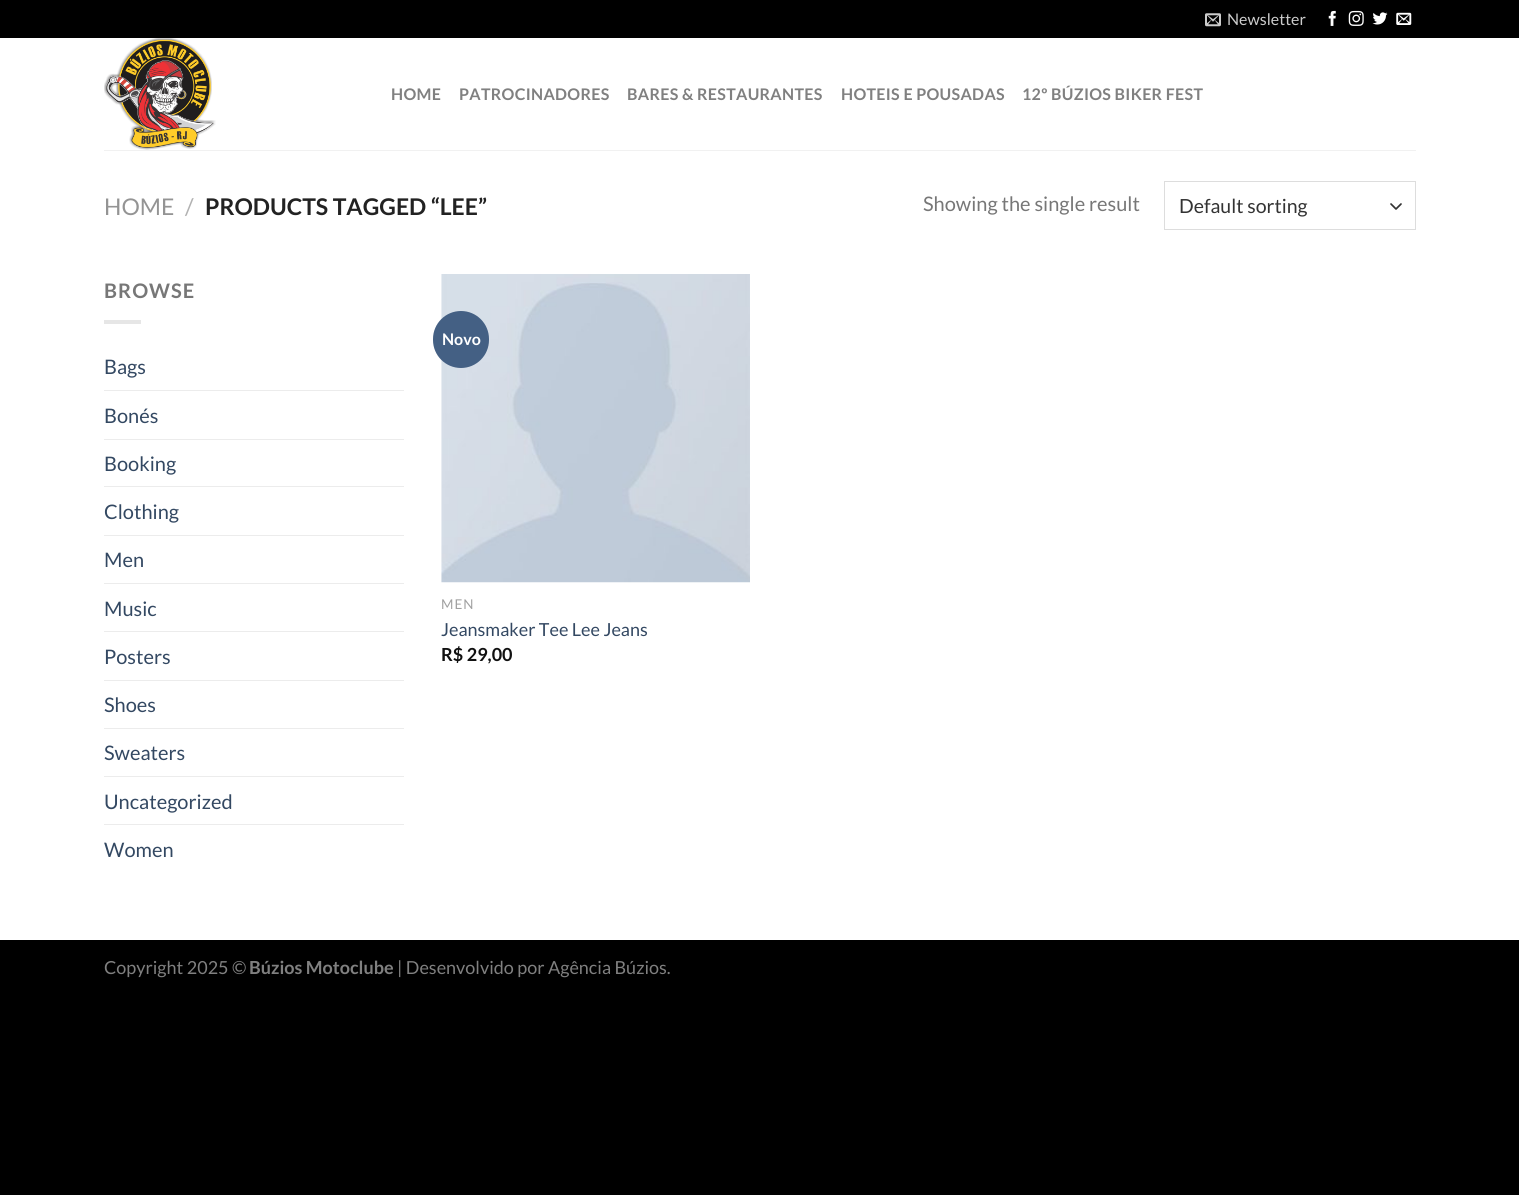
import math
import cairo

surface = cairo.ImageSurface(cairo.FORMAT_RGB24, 1519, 1195)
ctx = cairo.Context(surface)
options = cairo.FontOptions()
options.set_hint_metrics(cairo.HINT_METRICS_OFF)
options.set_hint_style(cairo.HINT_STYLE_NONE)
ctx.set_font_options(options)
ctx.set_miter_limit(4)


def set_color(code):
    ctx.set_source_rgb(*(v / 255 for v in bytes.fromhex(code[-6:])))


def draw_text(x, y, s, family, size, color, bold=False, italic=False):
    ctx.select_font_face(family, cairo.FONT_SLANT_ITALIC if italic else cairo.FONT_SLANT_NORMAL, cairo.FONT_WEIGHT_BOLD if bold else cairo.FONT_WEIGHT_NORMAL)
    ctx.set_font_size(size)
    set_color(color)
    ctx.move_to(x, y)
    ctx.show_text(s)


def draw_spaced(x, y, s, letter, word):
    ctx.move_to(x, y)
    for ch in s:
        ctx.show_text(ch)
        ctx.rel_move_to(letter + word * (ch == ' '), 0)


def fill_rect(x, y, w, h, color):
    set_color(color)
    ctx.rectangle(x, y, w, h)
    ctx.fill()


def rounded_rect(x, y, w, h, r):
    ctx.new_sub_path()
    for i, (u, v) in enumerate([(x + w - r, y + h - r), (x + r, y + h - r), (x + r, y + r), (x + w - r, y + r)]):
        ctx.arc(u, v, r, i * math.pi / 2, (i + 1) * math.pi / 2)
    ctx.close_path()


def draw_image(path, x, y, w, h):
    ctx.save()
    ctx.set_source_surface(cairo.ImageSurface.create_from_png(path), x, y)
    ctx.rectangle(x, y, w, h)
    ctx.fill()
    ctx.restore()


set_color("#000000")
ctx.paint()
fill_rect(0, 38, 1519, 902, "#ffffff")
draw_image("assets/img1.png", 1205, 13, 16, 14)
draw_text(1227, 25, "Newsletter", "Lato", 16, "#cccccc")
draw_image("assets/img2.png", 1328, 10, 8, 16)
draw_image("assets/img3.png", 1348, 10, 16, 16)
draw_image("assets/img4.png", 1372, 12, 16, 13)
draw_image("assets/img5.png", 1396, 12, 16, 13)
draw_image("assets/img6.png", 104, 38, 112, 112)
ctx.select_font_face("Lato", cairo.FONT_SLANT_NORMAL, cairo.FONT_WEIGHT_BOLD)
set_color("#808080")
draw_spaced(391, 100, "HOME", 0.3, 0)
draw_spaced(459, 100, "PATROCINADORES", 0.3, 0)
draw_spaced(627, 100, "BARES & RESTAURANTES", 0.3, 0)
draw_spaced(841, 100, "HOTEIS E POUSADAS", 0.3, 0)
draw_spaced(1022, 100, "12º BÚZIOS BIKER FEST", 0.3, 0)
fill_rect(104, 150, 1312, 1, "#f1f1f1")
draw_text(104, 215, "HOME", "Lato", 23, "#949494")
draw_text(185, 215, "/", "Lato", 23, "#b2b2b2")
draw_text(205, 215, "PRODUCTS TAGGED “LEE”", "Lato", 23, "#222222", bold=True)
draw_text(923, 211, "Showing the single result", "Lato", 20, "#777777")
ctx.new_path()
ctx.move_to(1391, 204)
ctx.line_to(1396, 209)
ctx.line_to(1401, 204)
set_color("#333333")
ctx.set_line_width(1.7)
ctx.set_line_cap(cairo.LINE_CAP_ROUND)
ctx.set_line_join(cairo.LINE_JOIN_ROUND)
ctx.stroke()
ctx.rectangle(1164.5, 181.5, 251, 48)
set_color("#dddddd")
ctx.set_line_width(1)
ctx.set_line_cap(cairo.LINE_CAP_BUTT)
ctx.set_line_join(cairo.LINE_JOIN_MITER)
ctx.stroke()
draw_text(1179, 213, "Default sorting", "Lato", 19.5, "#333333")
ctx.select_font_face("Lato", cairo.FONT_SLANT_NORMAL, cairo.FONT_WEIGHT_BOLD)
ctx.set_font_size(20)
set_color("#777777")
draw_spaced(104, 298, "BROWSE", 1, 0)
fill_rect(104, 320, 37, 4, "#e6e6e6")
draw_text(104, 374, "Bags", "Lato", 20, "#334862")
fill_rect(104, 390, 300, 1, "#ececec")
draw_text(104, 423, "Bonés", "Lato", 20, "#334862")
fill_rect(104, 439, 300, 1, "#ececec")
draw_text(104, 471, "Booking", "Lato", 20, "#334862")
fill_rect(104, 486, 300, 1, "#ececec")
draw_text(104, 519, "Clothing", "Lato", 20, "#334862")
fill_rect(104, 535, 300, 1, "#ececec")
draw_text(104, 567, "Men", "Lato", 20, "#334862")
fill_rect(104, 583, 300, 1, "#ececec")
draw_text(104, 616, "Music", "Lato", 20, "#334862")
fill_rect(104, 631, 300, 1, "#ececec")
draw_text(104, 664, "Posters", "Lato", 20, "#334862")
fill_rect(104, 680, 300, 1, "#ececec")
draw_text(104, 712, "Shoes", "Lato", 20, "#334862")
fill_rect(104, 728, 300, 1, "#ececec")
draw_text(104, 760, "Sweaters", "Lato", 20, "#334862")
fill_rect(104, 776, 300, 1, "#ececec")
draw_text(104, 809, "Uncategorized", "Lato", 20, "#334862")
fill_rect(104, 824, 300, 1, "#ececec")
draw_text(104, 857, "Women", "Lato", 20, "#334862")
draw_image("assets/img7.png", 441, 274, 309, 309)
set_color("#446084")
rounded_rect(433, 311, 56, 57, 28)
ctx.fill()
draw_text(442, 345, "Novo", "Lato", 16, "#ffffff", bold=True)
ctx.select_font_face("Lato")
ctx.set_font_size(13.5)
set_color("#a0a0a0")
draw_spaced(441, 609, "MEN", 1, 0)
draw_text(441, 636, "Jeansmaker Tee Lee Jeans", "Lato", 18, "#334862")
draw_text(441, 661, "R$ 29,00", "Lato", 18, "#111111", bold=True)
draw_text(104, 974, "Copyright 2025 ©", "Lato", 18, "#808080")
draw_text(249, 974, "Búzios Motoclube", "Lato", 18, "#808080", bold=True)
draw_text(397, 974, "| Desenvolvido por Agência Búzios.", "Lato", 18, "#808080")
surface.write_to_png("output.png")
